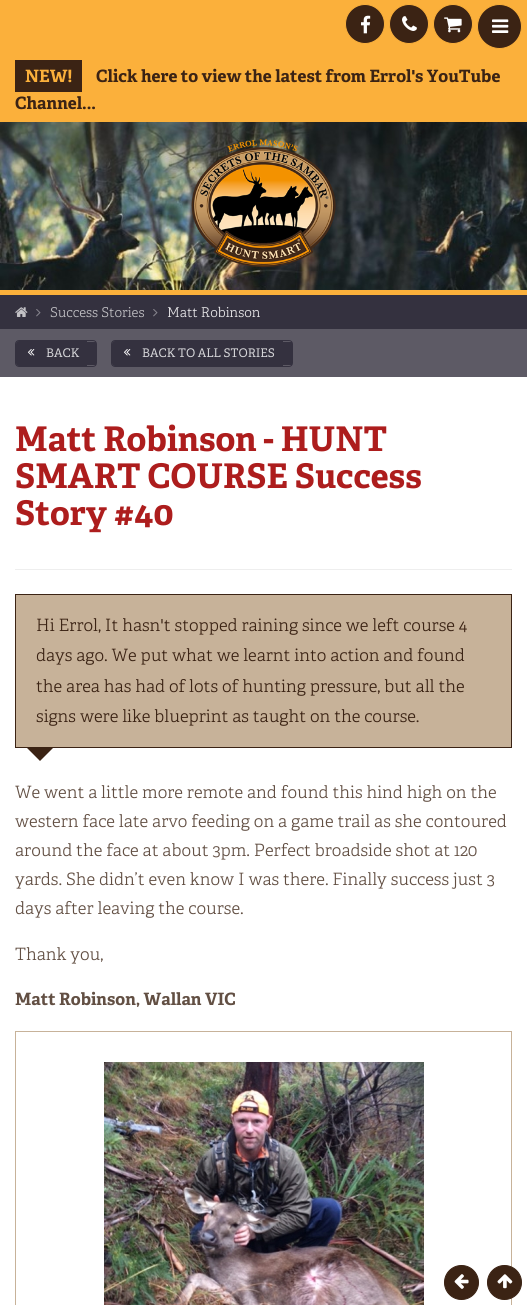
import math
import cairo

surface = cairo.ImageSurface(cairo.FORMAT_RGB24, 527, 1305)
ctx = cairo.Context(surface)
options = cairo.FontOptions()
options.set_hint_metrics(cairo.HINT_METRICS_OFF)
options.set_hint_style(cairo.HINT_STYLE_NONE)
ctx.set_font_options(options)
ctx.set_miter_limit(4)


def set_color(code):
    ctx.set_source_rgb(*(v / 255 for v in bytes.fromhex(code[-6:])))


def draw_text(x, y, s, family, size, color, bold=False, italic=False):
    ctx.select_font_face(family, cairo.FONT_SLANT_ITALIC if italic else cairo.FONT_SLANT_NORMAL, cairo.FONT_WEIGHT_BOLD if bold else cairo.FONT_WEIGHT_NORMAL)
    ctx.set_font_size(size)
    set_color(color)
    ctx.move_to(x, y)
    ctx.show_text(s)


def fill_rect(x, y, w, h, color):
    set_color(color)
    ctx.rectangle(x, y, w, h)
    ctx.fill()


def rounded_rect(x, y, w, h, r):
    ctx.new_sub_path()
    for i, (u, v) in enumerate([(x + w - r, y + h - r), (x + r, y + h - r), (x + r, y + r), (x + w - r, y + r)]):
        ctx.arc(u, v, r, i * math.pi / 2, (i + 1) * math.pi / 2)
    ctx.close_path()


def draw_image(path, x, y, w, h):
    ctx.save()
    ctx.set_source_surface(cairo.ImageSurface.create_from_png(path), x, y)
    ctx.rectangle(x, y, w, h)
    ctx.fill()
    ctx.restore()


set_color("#ffffff")
ctx.paint()
fill_rect(0, 0, 527, 122, "#fbb03b")
set_color("#3b2314")
ctx.arc(365, 24, 19.5, 0, 2 * math.pi)
ctx.fill_preserve()
set_color("#fbb03b")
ctx.set_line_width(1)
ctx.stroke()
draw_image("assets/img1.png", 361, 15, 10, 19)
set_color("#3b2314")
ctx.arc(409, 24, 19.5, 0, 2 * math.pi)
ctx.fill_preserve()
set_color("#fbb03b")
ctx.stroke()
draw_image("assets/img2.png", 402, 16, 15, 15)
set_color("#3b2314")
ctx.arc(453, 24, 19.5, 0, 2 * math.pi)
ctx.fill_preserve()
set_color("#fbb03b")
ctx.stroke()
draw_image("assets/img3.png", 444, 17, 18, 16)
set_color("#3b2314")
ctx.arc(499.5, 26.5, 22, 0, 2 * math.pi)
ctx.fill_preserve()
set_color("#fbb03b")
ctx.stroke()
draw_image("assets/img4.png", 492, 19, 17, 14)
fill_rect(15, 60, 67, 32, "#3b2314")
draw_text(25, 82, "NEW!", "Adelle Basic", 17, "#fbb03b", bold=True)
draw_text(96, 82, "Click here to view the latest from Errol's YouTube", "Adelle Basic", 17, "#3b2314", bold=True)
draw_text(15, 109, "Channel...", "Adelle Basic", 17, "#3b2314", bold=True)
draw_image("assets/img5.png", 0, 122, 527, 168)
draw_image("assets/img6.png", 191, 139, 145, 128)
fill_rect(0, 290, 527, 5, "#fbb03b")
fill_rect(0, 295, 527, 34, "#34313f")
draw_image("assets/img7.png", 15, 307, 13, 10)
draw_image("assets/img8.png", 36, 309, 5, 8)
draw_text(50, 317, "Success Stories", "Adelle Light", 13.5, "#c2c1c5")
draw_image("assets/img8.png", 153, 309, 5, 8)
draw_text(167, 317, "Matt Robinson", "Adelle Light", 13.5, "#ebeaec")
fill_rect(0, 329, 527, 48, "#5d5a65")
set_color("#34313f")
ctx.new_path()
ctx.move_to(19, 341)
ctx.line_to(87, 341)
ctx.line_to(87, 366)
ctx.line_to(19, 366)
ctx.curve_to(17, 366, 16, 365, 16, 363)
ctx.line_to(16, 344)
ctx.curve_to(16, 342, 17, 341, 19, 341)
ctx.close_path()
ctx.fill()
rounded_rect(15.5, 340.5, 81, 26, 3.5)
ctx.stroke()
fill_rect(87, 342, 9, 23, "#34313f")
draw_image("assets/img9.png", 27, 349, 8, 7)
draw_text(46, 357, "BACK", "Adelle Basic", 11.9, "#d6d6d9")
set_color("#34313f")
ctx.new_path()
ctx.move_to(115, 341)
ctx.line_to(283, 341)
ctx.line_to(283, 366)
ctx.line_to(115, 366)
ctx.curve_to(113, 366, 112, 365, 112, 363)
ctx.line_to(112, 344)
ctx.curve_to(112, 342, 113, 341, 115, 341)
ctx.close_path()
ctx.fill()
rounded_rect(111.5, 340.5, 181, 26, 3.5)
ctx.stroke()
fill_rect(283, 342, 9, 23, "#34313f")
draw_image("assets/img9.png", 123, 349, 8, 7)
draw_text(142, 357, "BACK TO ALL STORIES", "Adelle Basic", 11.9, "#d6d6d9")
draw_text(15, 451, "Matt Robinson - HUNT", "Adelle Basic", 34, "#ad1d1d", bold=True)
draw_text(15, 488, "SMART COURSE Success", "Adelle Basic", 34, "#ad1d1d", bold=True)
draw_text(15, 525, "Story #40", "Adelle Basic", 34, "#ad1d1d", bold=True)
fill_rect(15, 569, 497, 1, "#eeeeee")
set_color("#c7b299")
ctx.rectangle(15.5, 594.5, 496, 153)
ctx.fill_preserve()
set_color("#3b2314")
ctx.stroke()
draw_text(36, 631, "Hi Errol, It hasn't stopped raining since we left course 4", "Adelle Light", 17, "#3b2314")
draw_text(36, 661, "days ago. We put what we learnt into action and found", "Adelle Light", 17, "#3b2314")
draw_text(36, 692, "the area has had of lots of hunting pressure, but all the", "Adelle Light", 17, "#3b2314")
draw_text(36, 722, "signs were like blueprint as taught on the course.", "Adelle Light", 17, "#3b2314")
ctx.new_path()
ctx.move_to(26, 747)
ctx.line_to(54, 747)
ctx.line_to(40, 761)
ctx.close_path()
ctx.fill()
draw_text(15, 798, "We went a little more remote and found this hind high on the", "Adelle Light", 17, "#624f43")
draw_text(15, 827, "western face late arvo feeding on a game trail as she contoured", "Adelle Light", 17, "#624f43")
draw_text(15, 856, "around the face at about 3pm. Perfect broadside shot at 120", "Adelle Light", 17, "#624f43")
draw_text(15, 885, "yards. She didn’t even know I was there. Finally success just 3", "Adelle Light", 17, "#624f43")
draw_text(15, 914, "days after leaving the course.", "Adelle Light", 17, "#624f43")
draw_text(15, 960, "Thank you,", "Adelle Light", 17, "#624f43")
draw_text(15, 1005, "Matt Robinson, Wallan VIC", "Adelle Basic", 17, "#624f43", bold=True)
ctx.rectangle(15.5, 1031.5, 496, 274)
set_color("#c7b299")
ctx.stroke()
draw_image("assets/img10.png", 104, 1062, 320, 243)
set_color("#3b2314")
ctx.arc(461.5, 1282.5, 17, 0, 2 * math.pi)
ctx.fill_preserve()
ctx.stroke()
draw_image("assets/img11.png", 454, 1274, 15, 15)
ctx.arc(504.5, 1282.5, 17, 0, 2 * math.pi)
ctx.fill_preserve()
ctx.stroke()
draw_image("assets/img12.png", 497, 1274, 16, 15)
surface.write_to_png("output.png")
